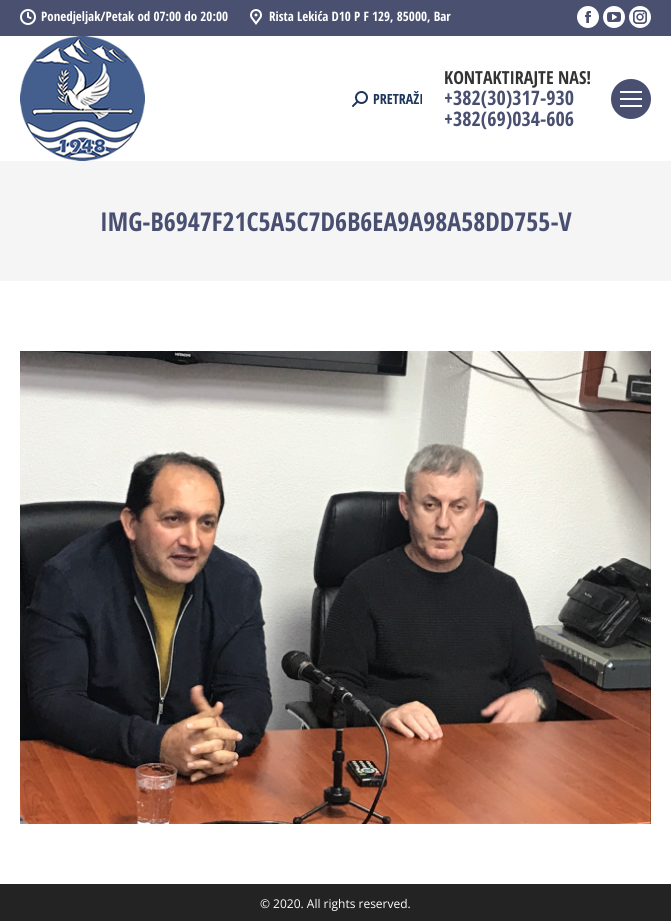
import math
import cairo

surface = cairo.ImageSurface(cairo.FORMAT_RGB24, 671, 921)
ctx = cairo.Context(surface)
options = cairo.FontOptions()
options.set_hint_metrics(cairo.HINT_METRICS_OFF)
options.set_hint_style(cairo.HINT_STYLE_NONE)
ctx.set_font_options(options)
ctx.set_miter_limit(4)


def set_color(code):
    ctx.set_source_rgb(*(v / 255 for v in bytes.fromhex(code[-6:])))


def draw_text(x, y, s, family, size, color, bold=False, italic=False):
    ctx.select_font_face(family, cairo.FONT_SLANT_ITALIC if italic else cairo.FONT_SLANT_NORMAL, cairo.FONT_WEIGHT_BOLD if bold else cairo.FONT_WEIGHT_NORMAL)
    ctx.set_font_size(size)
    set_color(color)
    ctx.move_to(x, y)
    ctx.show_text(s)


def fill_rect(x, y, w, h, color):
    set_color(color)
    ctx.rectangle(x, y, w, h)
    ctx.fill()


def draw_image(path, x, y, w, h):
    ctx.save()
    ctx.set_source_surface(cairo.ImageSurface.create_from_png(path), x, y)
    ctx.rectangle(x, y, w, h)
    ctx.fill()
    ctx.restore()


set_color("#ffffff")
ctx.paint()
fill_rect(0, 0, 671, 36, "#4a506f")
draw_image("assets/img1.png", 20, 9, 16, 16)
draw_text(41, 21, "Ponedjeljak/Petak od 07:00 do 20:00", "Open Sans Condensed", 13, "#ffffff", bold=True)
draw_image("assets/img2.png", 250, 9, 12, 16)
draw_text(269, 21, "Rista Lekića D10 P F 129, 85000, Bar", "Open Sans Condensed", 13, "#ffffff", bold=True)
ctx.new_path()
ctx.arc(588, 17, 11, 0, 2 * math.pi)
ctx.fill()
draw_image("assets/img3.png", 585, 11, 6, 12)
ctx.arc(614, 17, 11, 0, 2 * math.pi)
ctx.fill()
draw_image("assets/img4.png", 607, 12, 14, 10)
ctx.arc(640, 17, 11, 0, 2 * math.pi)
ctx.fill()
draw_image("assets/img5.png", 633, 10, 14, 14)
draw_image("assets/img6.png", 20, 36, 125, 125)
draw_image("assets/img7.png", 352, 91, 16, 16)
draw_text(373, 104, "PRETRAŽI", "Open Sans Condensed", 14, "#1f365c", bold=True)
draw_text(444, 84, "KONTAKTIRAJTE NAS!", "Open Sans Condensed", 18, "#333333", bold=True)
draw_text(444, 105, "+382(30)317-930", "Open Sans Condensed", 20, "#494f71", bold=True)
draw_text(444, 126, "+382(69)034-606", "Open Sans Condensed", 20, "#494f71", bold=True)
ctx.new_path()
ctx.arc(631, 99, 20, 0, 2 * math.pi)
ctx.fill()
fill_rect(620, 98, 22, 2, "#ffffff")
fill_rect(620, 91, 22, 2, "#ffffff")
fill_rect(620, 105, 22, 2, "#ffffff")
fill_rect(0, 161, 671, 120, "#f5f5f5")
draw_text(100, 231, "IMG-B6947F21C5A5C7D6B6EA9A98A58DD755-V", "Open Sans Condensed", 26, "#494f71", bold=True)
draw_image("assets/img8.png", 20, 351, 631, 473)
fill_rect(0, 884, 671, 37, "#232323")
draw_text(260, 908, "© 2020. All rights reserved.", "Open Sans", 12, "#ffffff")
surface.write_to_png("output.png")
